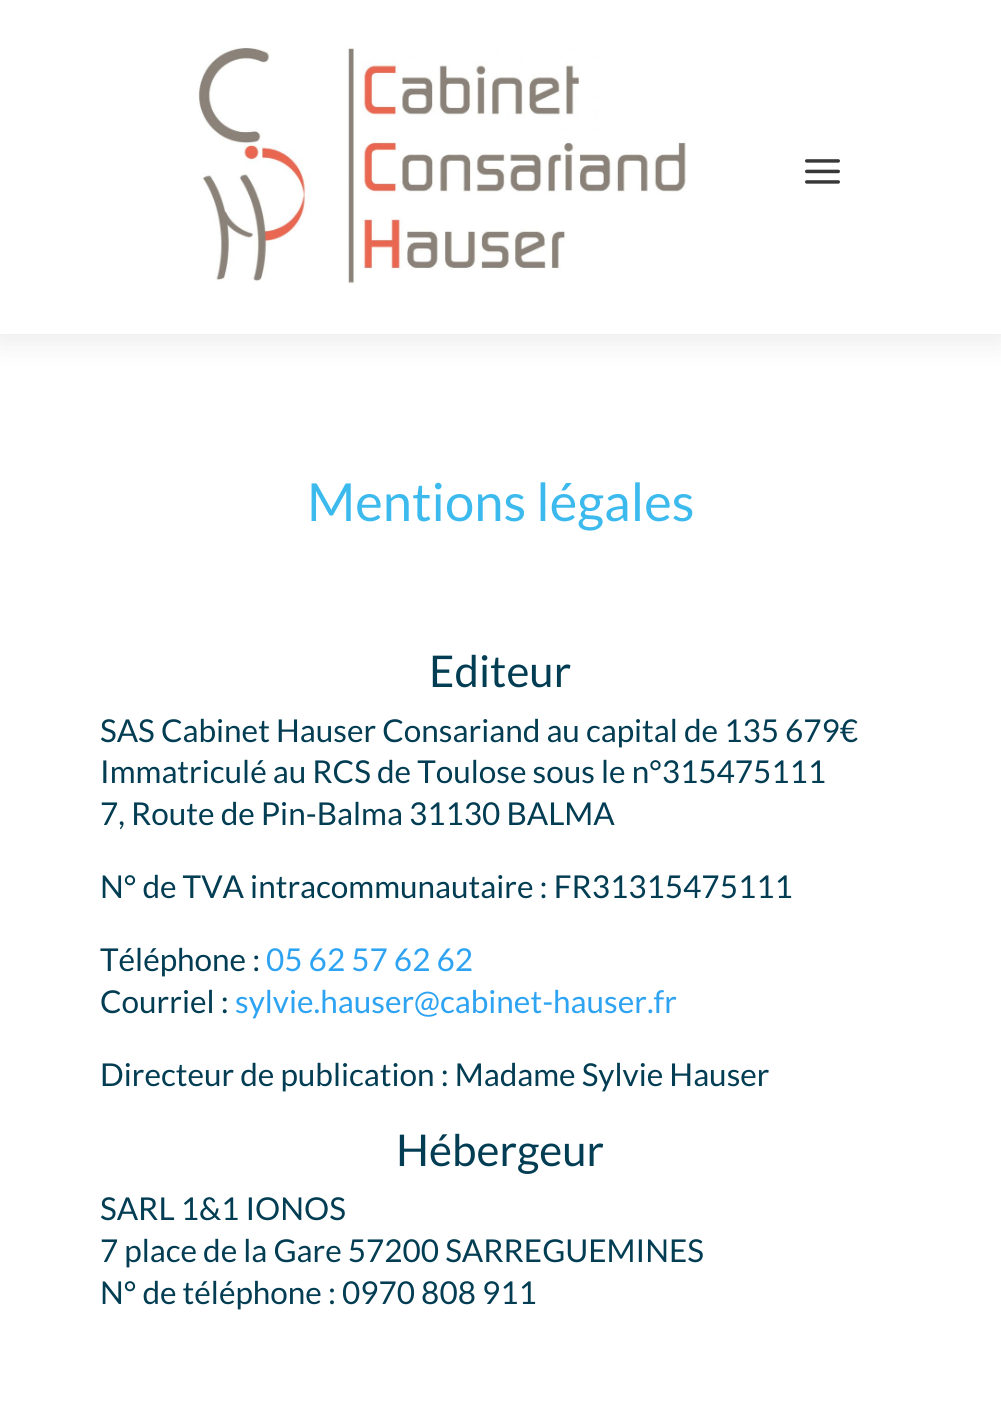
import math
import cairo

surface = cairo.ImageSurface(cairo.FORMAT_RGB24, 1001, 1411)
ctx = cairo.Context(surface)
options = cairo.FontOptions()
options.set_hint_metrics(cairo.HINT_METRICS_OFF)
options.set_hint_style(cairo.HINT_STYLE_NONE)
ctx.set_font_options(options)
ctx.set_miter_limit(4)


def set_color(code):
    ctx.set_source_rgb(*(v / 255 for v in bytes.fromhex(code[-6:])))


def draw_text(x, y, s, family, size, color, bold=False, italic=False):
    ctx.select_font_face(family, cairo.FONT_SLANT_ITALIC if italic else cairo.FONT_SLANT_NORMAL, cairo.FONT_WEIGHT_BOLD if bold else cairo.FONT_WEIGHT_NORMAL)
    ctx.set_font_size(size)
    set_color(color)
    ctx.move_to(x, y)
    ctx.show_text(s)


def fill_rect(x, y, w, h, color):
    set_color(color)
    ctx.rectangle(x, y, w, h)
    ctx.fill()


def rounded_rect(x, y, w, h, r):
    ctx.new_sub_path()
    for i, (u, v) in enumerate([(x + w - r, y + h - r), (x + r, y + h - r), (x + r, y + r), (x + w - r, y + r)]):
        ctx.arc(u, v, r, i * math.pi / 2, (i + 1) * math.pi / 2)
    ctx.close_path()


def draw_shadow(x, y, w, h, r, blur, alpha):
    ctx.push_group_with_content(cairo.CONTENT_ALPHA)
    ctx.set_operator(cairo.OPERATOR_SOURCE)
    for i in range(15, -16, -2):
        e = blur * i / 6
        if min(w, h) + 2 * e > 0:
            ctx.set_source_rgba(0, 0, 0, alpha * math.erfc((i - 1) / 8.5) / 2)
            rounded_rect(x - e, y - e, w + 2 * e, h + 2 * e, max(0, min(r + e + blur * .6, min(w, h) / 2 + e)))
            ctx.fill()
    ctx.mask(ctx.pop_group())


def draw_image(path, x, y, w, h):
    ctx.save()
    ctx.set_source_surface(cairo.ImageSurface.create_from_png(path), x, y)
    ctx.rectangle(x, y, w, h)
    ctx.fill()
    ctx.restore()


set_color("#ffffff")
ctx.paint()
set_color("#000000")
draw_shadow(0, 4, 1001, 334, 0, 16, 0.1)
fill_rect(0, 0, 1001, 334, "#ffffff")
draw_image("assets/img1.png", 198, 47, 488, 237)
draw_image("assets/img2.png", 805, 159, 35, 25)
draw_text(307, 521, "Mentions légales", "Lato", 52.5, "#3cbaee")
draw_text(429, 687, "Editeur", "Lato", 43.75, "#023d53")
draw_text(100, 742, "SAS Cabinet Hauser Consariand au capital de 135 679€", "Lato", 31.5, "#023d53")
draw_text(100, 783, "Immatriculé au RCS de Toulose sous le n°315475111", "Lato", 31.5, "#023d53")
draw_text(100, 825, "7, Route de Pin-Balma 31130 BALMA", "Lato", 31.5, "#023d53")
draw_text(100, 898, "N° de TVA intracommunautaire : FR31315475111", "Lato", 31.5, "#023d53")
draw_text(100, 971, "Téléphone :", "Lato", 31.5, "#023d53")
draw_text(266, 971, "05 62 57 62 62", "Lato", 31.5, "#2ea3f2")
draw_text(100, 1013, "Courriel :", "Lato", 31.5, "#023d53")
draw_text(235, 1013, "sylvie.hauser@cabinet-hauser.fr", "Lato", 31.5, "#2ea3f2")
draw_text(100, 1086, "Directeur de publication : Madame Sylvie Hauser", "Lato", 31.5, "#023d53")
draw_text(396, 1166, "Hébergeur", "Lato", 43.75, "#023d53")
draw_text(100, 1220, "SARL 1&1 IONOS", "Lato", 31.5, "#023d53")
draw_text(100, 1262, "7 place de la Gare 57200 SARREGUEMINES", "Lato", 31.5, "#023d53")
draw_text(100, 1304, "N° de téléphone : 0970 808 911", "Lato", 31.5, "#023d53")
surface.write_to_png("output.png")
